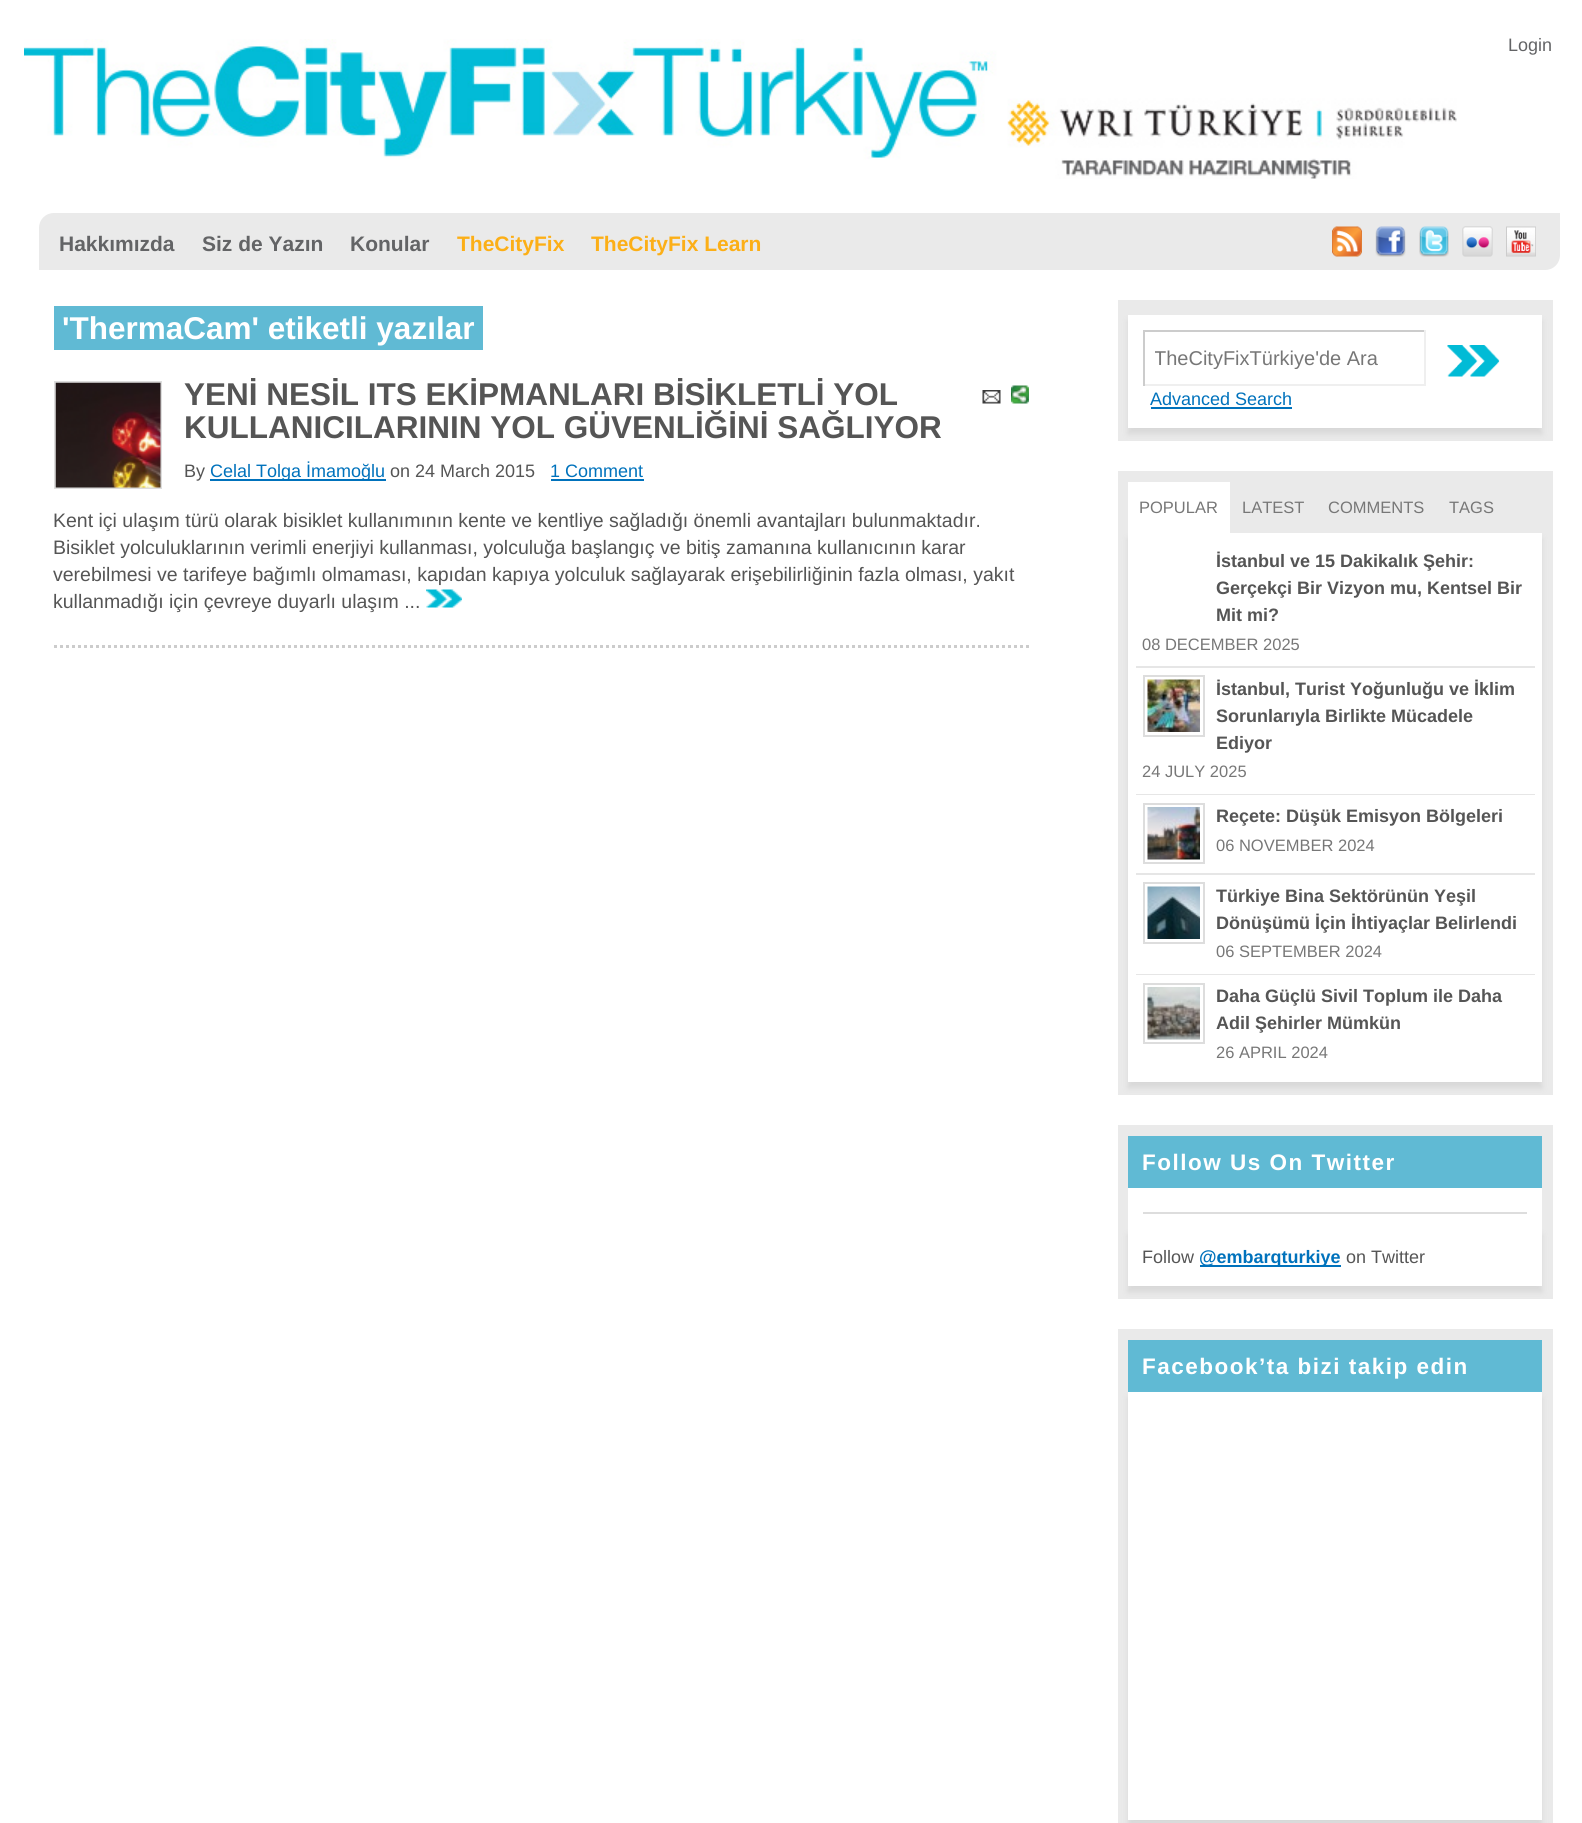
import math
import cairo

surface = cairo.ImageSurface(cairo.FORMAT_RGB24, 1582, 1823)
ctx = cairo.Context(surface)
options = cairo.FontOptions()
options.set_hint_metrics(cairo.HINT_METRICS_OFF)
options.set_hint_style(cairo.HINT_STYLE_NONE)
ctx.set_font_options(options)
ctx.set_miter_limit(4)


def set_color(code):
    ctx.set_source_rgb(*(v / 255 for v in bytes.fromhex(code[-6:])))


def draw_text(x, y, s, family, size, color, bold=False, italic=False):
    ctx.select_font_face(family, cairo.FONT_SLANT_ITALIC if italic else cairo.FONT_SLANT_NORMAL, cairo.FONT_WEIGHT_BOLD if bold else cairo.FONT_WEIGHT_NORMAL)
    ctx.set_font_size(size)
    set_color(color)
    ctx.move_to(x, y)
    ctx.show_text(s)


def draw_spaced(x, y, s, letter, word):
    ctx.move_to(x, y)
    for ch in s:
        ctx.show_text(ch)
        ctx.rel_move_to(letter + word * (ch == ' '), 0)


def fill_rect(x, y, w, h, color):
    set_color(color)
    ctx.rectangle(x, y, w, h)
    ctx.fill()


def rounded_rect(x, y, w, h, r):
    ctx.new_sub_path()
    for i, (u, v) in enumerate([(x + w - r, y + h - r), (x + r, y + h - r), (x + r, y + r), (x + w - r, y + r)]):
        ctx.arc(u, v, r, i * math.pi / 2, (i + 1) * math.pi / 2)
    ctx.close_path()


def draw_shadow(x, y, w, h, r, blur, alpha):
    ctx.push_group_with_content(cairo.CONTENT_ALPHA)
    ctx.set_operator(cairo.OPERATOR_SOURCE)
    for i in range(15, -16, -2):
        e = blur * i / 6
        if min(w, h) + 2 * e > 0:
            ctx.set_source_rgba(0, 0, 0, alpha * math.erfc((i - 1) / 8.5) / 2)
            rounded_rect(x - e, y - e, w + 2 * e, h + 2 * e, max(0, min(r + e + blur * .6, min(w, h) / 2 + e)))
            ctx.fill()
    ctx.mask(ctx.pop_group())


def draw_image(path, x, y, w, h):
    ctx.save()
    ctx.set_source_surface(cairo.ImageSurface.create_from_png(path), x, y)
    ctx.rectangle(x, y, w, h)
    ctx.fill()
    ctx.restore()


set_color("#ffffff")
ctx.paint()
draw_image("assets/img1.png", 24, 39, 1433, 140)
draw_text(1508, 51, "Login", "Liberation Sans", 18, "#636466")
set_color("#eaeaea")
ctx.new_path()
ctx.move_to(54, 213)
ctx.line_to(1560, 213)
ctx.line_to(1560, 255)
ctx.curve_to(1560, 263.5, 1553.5, 270, 1545, 270)
ctx.line_to(39, 270)
ctx.line_to(39, 228)
ctx.curve_to(39, 219.5, 45.5, 213, 54, 213)
ctx.close_path()
ctx.fill()
draw_text(59, 251, "Hakkımızda", "Liberation Sans", 21, "#636466", bold=True)
draw_text(202, 251, "Siz de Yazın", "Liberation Sans", 21, "#636466", bold=True)
draw_text(350, 251, "Konular", "Liberation Sans", 21, "#636466", bold=True)
draw_text(457, 251, "TheCityFix", "Liberation Sans", 21, "#fcaf17", bold=True)
draw_text(591, 251, "TheCityFix Learn", "Liberation Sans", 21, "#fcaf17", bold=True)
draw_image("assets/img2.png", 1332, 226, 30, 31)
draw_image("assets/img3.png", 1375, 226, 31, 31)
draw_image("assets/img4.png", 1419, 226, 30, 31)
draw_image("assets/img5.png", 1462, 226, 31, 31)
draw_image("assets/img6.png", 1506, 226, 30, 31)
fill_rect(54, 306, 429, 44, "#60bad4")
draw_text(62, 339, "'ThermaCam' etiketli yazılar", "Liberation Sans", 31.5, "#ffffff", bold=True)
ctx.new_path()
ctx.move_to(54, 646.5)
ctx.line_to(1029, 646.5)
set_color("#cccccc")
ctx.set_line_width(3)
ctx.set_dash([3, 3])
ctx.stroke()
ctx.rectangle(55, 382, 106, 106)
set_color("#dddddd")
ctx.set_line_width(2)
ctx.set_dash([])
ctx.stroke()
draw_image("assets/img7.png", 55, 382, 106, 106)
draw_text(184, 405, "YENİ NESİL ITS EKİPMANLARI BİSİKLETLİ YOL", "Liberation Sans", 31.5, "#555555", bold=True)
draw_text(184, 438, "KULLANICILARININ YOL GÜVENLİĞİNİ SAĞLIYOR", "Liberation Sans", 31.5, "#555555", bold=True)
draw_image("assets/img8.png", 982, 390, 19, 14)
draw_image("assets/img9.png", 1011, 385, 18, 19)
draw_text(184, 477, "By", "Liberation Sans", 18, "#555555")
fill_rect(210, 479, 176, 2, "#0072bc")
draw_text(210, 477, "Celal Tolga İmamoğlu", "Liberation Sans", 18, "#0072bc")
draw_text(390, 477, "on 24 March 2015", "Liberation Sans", 18, "#555555")
draw_text(550, 477, "1 Comment", "Liberation Sans", 18, "#0072bc")
fill_rect(551, 479, 93, 2, "#0072bc")
draw_text(53, 527, "Kent içi ulaşım türü olarak bisiklet kullanımının kente ve kentliye sağladığı önemli avantajları bulunmaktadır.", "Liberation Sans", 19.5, "#555555")
draw_text(53, 554, "Bisiklet yolculuklarının verimli enerjiyi kullanması, yolculuğa başlangıç ve bitiş zamanına kullanıcının karar", "Liberation Sans", 19.5, "#555555")
draw_text(53, 581, "verebilmesi ve tarifeye bağımlı olmaması, kapıdan kapıya yolculuk sağlayarak erişebilirliğinin fazla olması, yakıt", "Liberation Sans", 19.5, "#555555")
draw_text(53, 608, "kullanmadığı için çevreye duyarlı ulaşım ...", "Liberation Sans", 19.5, "#555555")
draw_image("assets/img10.png", 426, 589, 36, 19)
fill_rect(1118, 300, 435, 141, "#eaeaea")
set_color("#d8d8d8")
draw_shadow(1128, 321, 414, 113, 0, 3, 1)
fill_rect(1128, 315, 414, 113, "#ffffff")
fill_rect(1143, 330, 282, 2, "#cccccc")
fill_rect(1424, 330, 2, 56, "#efefef")
fill_rect(1143, 384, 282, 2, "#efefef")
fill_rect(1143, 330, 2, 56, "#cccccc")
ctx.save()
ctx.rectangle(1155, 347, 269, 22)
ctx.clip()
draw_text(1154, 365, "TheCityFixTürkiye'de Ara", "Liberation Sans", 20, "#777777")
ctx.restore()
draw_image("assets/img11.png", 1447, 345, 53, 32)
draw_text(1150, 405, "Advanced Search", "Liberation Sans", 18, "#0072bc")
fill_rect(1151, 407, 141, 2, "#0072bc")
fill_rect(1118, 471, 435, 624, "#eaeaea")
set_color("#d8d8d8")
draw_shadow(1128, 539, 414, 549, 0, 3, 1)
fill_rect(1128, 482, 102, 51, "#ffffff")
draw_text(1139, 513, "POPULAR", "Liberation Sans", 16.5, "#777777")
draw_text(1242, 513, "LATEST", "Liberation Sans", 16.5, "#777777")
draw_text(1328, 513, "COMMENTS", "Liberation Sans", 16.5, "#777777")
draw_text(1449, 513, "TAGS", "Liberation Sans", 16.5, "#777777")
fill_rect(1128, 533, 414, 549, "#ffffff")
fill_rect(1136, 666, 399, 2, "#e6e6e6")
draw_text(1216, 567, "İstanbul ve 15 Dakikalık Şehir:", "Liberation Sans", 18, "#555555", bold=True)
draw_text(1216, 594, "Gerçekçi Bir Vizyon mu, Kentsel Bir", "Liberation Sans", 18, "#555555", bold=True)
draw_text(1216, 621, "Mit mi?", "Liberation Sans", 18, "#555555", bold=True)
draw_text(1142, 650, "08 DECEMBER 2025", "Liberation Sans", 16.5, "#777777")
fill_rect(1136, 794, 399, 1, "#e6e6e6")
ctx.rectangle(1144, 676, 60, 60)
set_color("#dddddd")
ctx.stroke()
draw_image("assets/img12.png", 1147, 679, 53, 53)
draw_text(1216, 695, "İstanbul, Turist Yoğunluğu ve İklim", "Liberation Sans", 18, "#555555", bold=True)
draw_text(1216, 722, "Sorunlarıyla Birlikte Mücadele", "Liberation Sans", 18, "#555555", bold=True)
draw_text(1216, 749, "Ediyor", "Liberation Sans", 18, "#555555", bold=True)
draw_text(1142, 777, "24 JULY 2025", "Liberation Sans", 16.5, "#777777")
fill_rect(1136, 873, 399, 2, "#e6e6e6")
ctx.rectangle(1144, 804, 60, 59)
set_color("#dddddd")
ctx.stroke()
draw_image("assets/img13.png", 1147, 807, 53, 53)
draw_text(1216, 822, "Reçete: Düşük Emisyon Bölgeleri", "Liberation Sans", 18, "#555555", bold=True)
draw_text(1216, 851, "06 NOVEMBER 2024", "Liberation Sans", 16.5, "#777777")
fill_rect(1136, 974, 399, 1, "#e6e6e6")
ctx.rectangle(1144, 883, 60, 60)
set_color("#dddddd")
ctx.stroke()
draw_image("assets/img14.png", 1147, 886, 53, 53)
draw_text(1216, 902, "Türkiye Bina Sektörünün Yeşil", "Liberation Sans", 18, "#555555", bold=True)
draw_text(1216, 929, "Dönüşümü İçin İhtiyaçlar Belirlendi", "Liberation Sans", 18, "#555555", bold=True)
draw_text(1216, 957, "06 SEPTEMBER 2024", "Liberation Sans", 16.5, "#777777")
ctx.rectangle(1144, 984, 60, 59)
set_color("#dddddd")
ctx.stroke()
draw_image("assets/img15.png", 1147, 987, 53, 53)
draw_text(1216, 1002, "Daha Güçlü Sivil Toplum ile Daha", "Liberation Sans", 18, "#555555", bold=True)
draw_text(1216, 1029, "Adil Şehirler Mümkün", "Liberation Sans", 18, "#555555", bold=True)
draw_text(1216, 1058, "26 APRIL 2024", "Liberation Sans", 16.5, "#777777")
fill_rect(1118, 1125, 435, 174, "#eaeaea")
fill_rect(1128, 1136, 414, 52, "#60bad4")
ctx.select_font_face("Liberation Sans", cairo.FONT_SLANT_NORMAL, cairo.FONT_WEIGHT_BOLD)
ctx.set_font_size(22.5)
set_color("#ffffff")
draw_spaced(1142, 1170, "Follow Us On Twitter", 1.5, 0)
fill_rect(1128, 1188, 414, 41, "#ffffff")
fill_rect(1143, 1212, 384, 2, "#dddddd")
set_color("#d8d8d8")
draw_shadow(1128, 1235, 414, 57, 0, 3, 1)
fill_rect(1128, 1229, 414, 57, "#ffffff")
draw_text(1142, 1263, "Follow", "Liberation Sans", 18, "#555555")
fill_rect(1200, 1265, 141, 2, "#0072bc")
draw_text(1199, 1263, "@embarqturkiye", "Liberation Sans", 18, "#0072bc", bold=True)
draw_text(1346, 1263, "on Twitter", "Liberation Sans", 18, "#555555")
fill_rect(1118, 1329, 435, 494, "#eaeaea")
fill_rect(1128, 1340, 414, 52, "#60bad4")
ctx.select_font_face("Liberation Sans", cairo.FONT_SLANT_NORMAL, cairo.FONT_WEIGHT_BOLD)
ctx.set_font_size(22.5)
set_color("#ffffff")
draw_spaced(1142, 1374, "Facebook’ta bizi takip edin", 1.5, 0)
set_color("#d8d8d8")
draw_shadow(1128, 1398, 414, 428, 0, 3, 1)
fill_rect(1128, 1392, 414, 428, "#ffffff")
surface.write_to_png("output.png")
